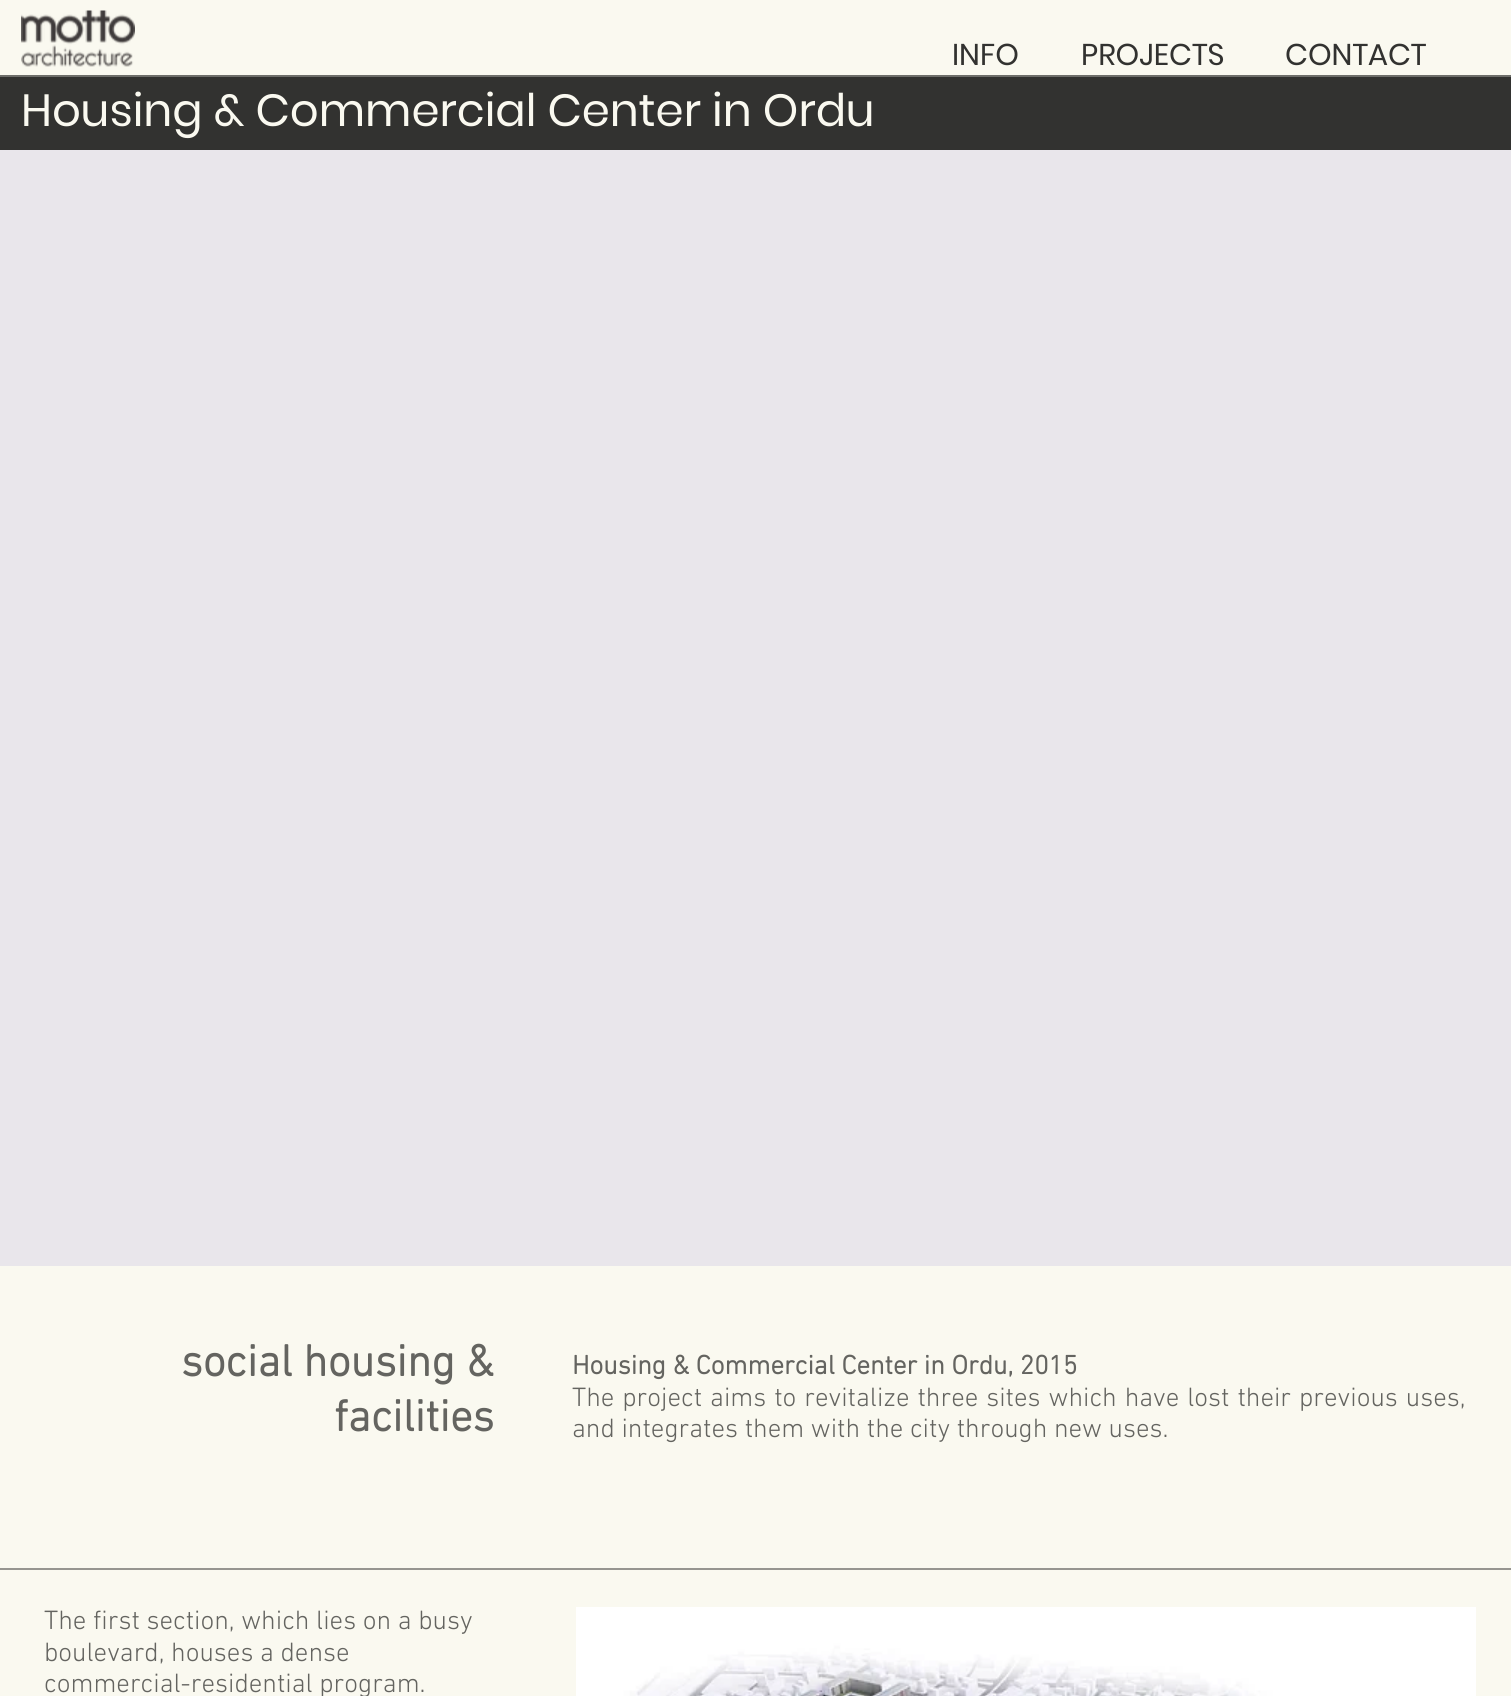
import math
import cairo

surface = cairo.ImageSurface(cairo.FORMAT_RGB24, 1511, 1696)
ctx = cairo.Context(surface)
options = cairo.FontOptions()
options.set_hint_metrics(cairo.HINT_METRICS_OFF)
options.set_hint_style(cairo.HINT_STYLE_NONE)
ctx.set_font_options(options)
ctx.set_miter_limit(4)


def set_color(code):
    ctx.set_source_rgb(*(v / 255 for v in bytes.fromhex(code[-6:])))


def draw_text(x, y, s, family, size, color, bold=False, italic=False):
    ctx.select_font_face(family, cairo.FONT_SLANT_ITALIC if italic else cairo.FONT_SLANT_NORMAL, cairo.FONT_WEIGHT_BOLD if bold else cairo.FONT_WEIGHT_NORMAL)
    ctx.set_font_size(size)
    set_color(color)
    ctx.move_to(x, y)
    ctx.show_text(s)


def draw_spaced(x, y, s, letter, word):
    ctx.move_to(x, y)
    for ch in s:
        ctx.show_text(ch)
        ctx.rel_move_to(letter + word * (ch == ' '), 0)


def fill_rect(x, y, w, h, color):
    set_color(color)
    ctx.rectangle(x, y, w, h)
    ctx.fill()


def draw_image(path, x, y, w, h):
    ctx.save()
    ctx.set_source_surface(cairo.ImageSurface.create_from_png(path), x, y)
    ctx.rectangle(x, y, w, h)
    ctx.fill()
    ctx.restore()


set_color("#faf9f0")
ctx.paint()
draw_image("assets/img1.png", 21, 10, 114, 57)
draw_text(952, 65, "INFO", "Poppins", 30, "#323230")
draw_text(1081, 65, "PROJECTS", "Poppins", 30, "#323230")
draw_text(1285, 65, "CONTACT", "Poppins", 30, "#323230")
fill_rect(0, 75, 1511, 2, "#6e6e6a")
fill_rect(0, 77, 1511, 73, "#323230")
draw_text(21, 126, "Housing & Commercial Center in Ordu", "Poppins", 45, "#faf9f0")
fill_rect(0, 150, 1511, 1116, "#e9e6eb")
draw_text(181, 1376, "social housing &", "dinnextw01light", 45, "#646460", bold=True)
draw_text(334, 1431, "facilities", "dinnextw01light", 45, "#646460", bold=True)
draw_text(572, 1374, "Housing & Commercial Center in Ordu, 2015", "dinnextw01light", 27, "#646460", bold=True)
ctx.select_font_face("dinnextw01light Light")
draw_spaced(572, 1406, "The project aims to revitalize three sites which have lost their previous uses,", 0, 1.3)
draw_text(572, 1437, "and integrates them with the city through new uses.", "dinnextw01light Light", 27, "#646460")
fill_rect(0, 1568, 1511, 2, "#969590")
draw_text(44, 1629, "The first section, which lies on a busy", "dinnextw01light Light", 27, "#646460")
draw_text(44, 1661, "boulevard, houses a dense", "dinnextw01light Light", 27, "#646460")
draw_text(44, 1692, "commercial-residential program.", "dinnextw01light Light", 27, "#646460")
draw_image("assets/img2.png", 576, 1607, 900, 89)
surface.write_to_png("output.png")
